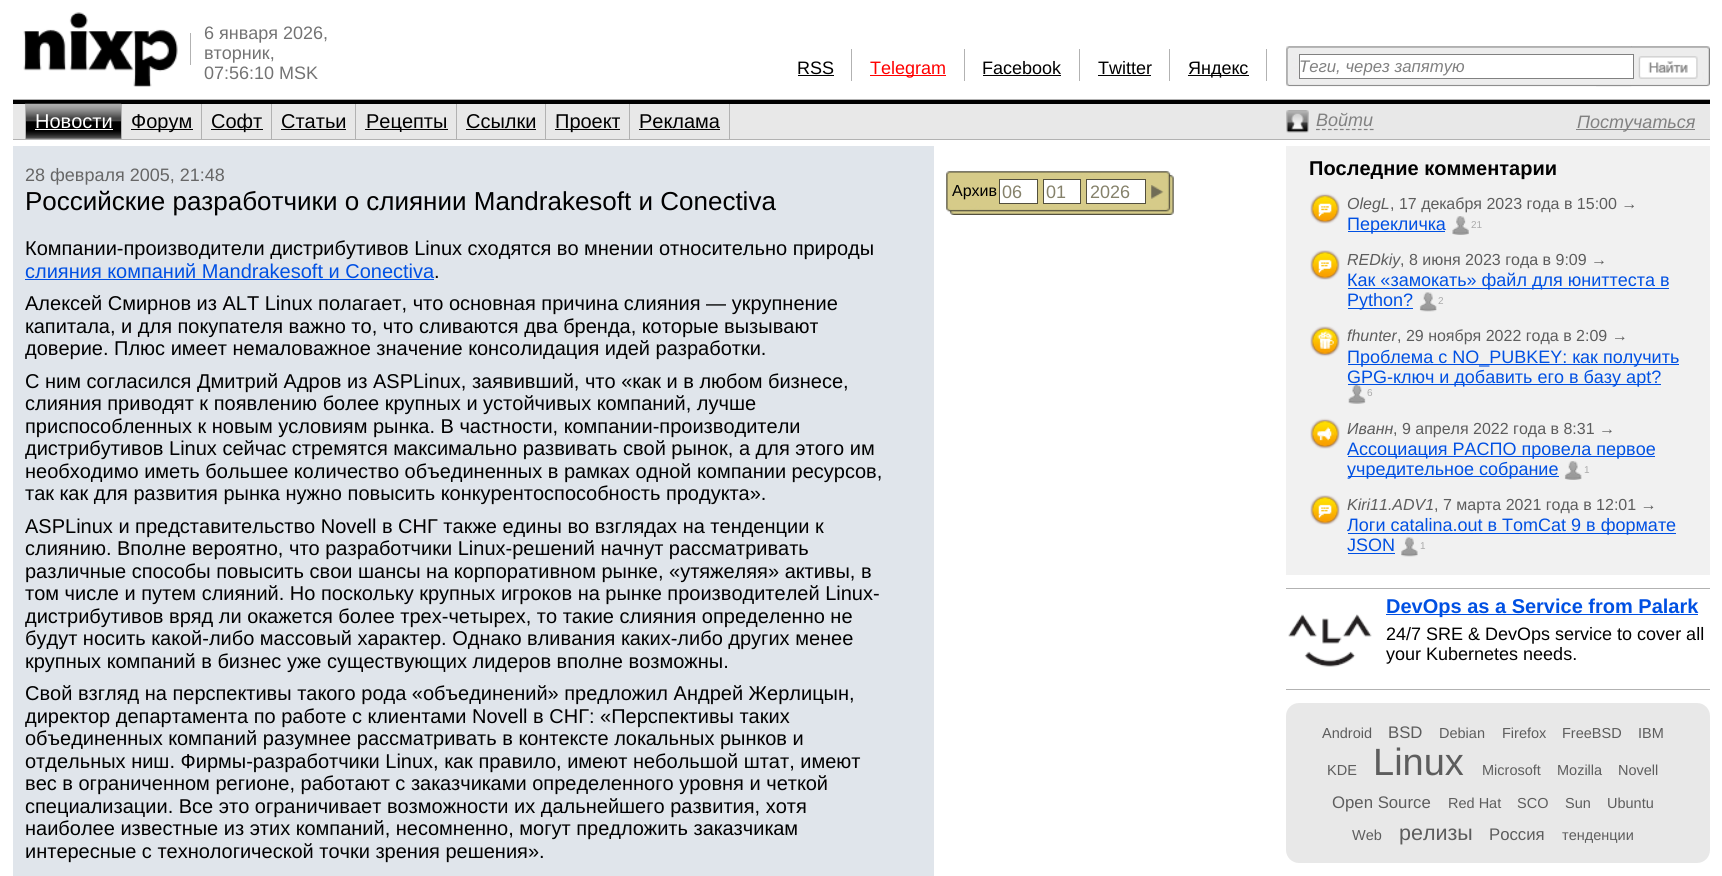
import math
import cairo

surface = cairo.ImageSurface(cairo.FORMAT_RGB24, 1722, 876)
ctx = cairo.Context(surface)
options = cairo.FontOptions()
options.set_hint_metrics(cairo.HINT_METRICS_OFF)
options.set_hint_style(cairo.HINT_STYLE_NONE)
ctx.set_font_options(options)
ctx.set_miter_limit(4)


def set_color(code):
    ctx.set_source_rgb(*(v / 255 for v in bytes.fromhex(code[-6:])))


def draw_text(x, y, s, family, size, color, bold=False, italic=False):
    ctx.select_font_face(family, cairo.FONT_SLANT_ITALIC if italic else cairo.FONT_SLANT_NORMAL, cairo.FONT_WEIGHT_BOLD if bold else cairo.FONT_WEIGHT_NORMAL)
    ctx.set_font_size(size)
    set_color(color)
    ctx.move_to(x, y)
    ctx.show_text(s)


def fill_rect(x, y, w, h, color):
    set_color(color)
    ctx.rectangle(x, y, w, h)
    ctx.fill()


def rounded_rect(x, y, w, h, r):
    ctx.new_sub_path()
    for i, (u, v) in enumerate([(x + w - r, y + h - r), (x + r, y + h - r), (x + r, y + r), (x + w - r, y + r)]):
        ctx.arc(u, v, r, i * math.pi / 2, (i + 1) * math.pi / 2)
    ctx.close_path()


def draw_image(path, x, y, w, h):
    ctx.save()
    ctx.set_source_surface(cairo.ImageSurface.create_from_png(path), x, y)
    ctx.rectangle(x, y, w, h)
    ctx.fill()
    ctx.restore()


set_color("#ffffff")
ctx.paint()
fill_rect(13, 99, 1697, 1, "#b2b2b2")
draw_image("assets/img1.png", 23, 12, 155, 75)
fill_rect(190, 33, 1, 32, "#b2b2b2")
draw_text(204, 39, "6 января 2026,", "Liberation Sans", 18, "#737373")
draw_text(204, 59, "вторник,", "Liberation Sans", 18, "#737373")
draw_text(204, 79, "07:56:10 MSK", "Liberation Sans", 18, "#737373")
draw_text(797, 74, "RSS", "Liberation Sans", 18, "#000000")
fill_rect(798, 75, 36, 1, "#000000")
fill_rect(851, 49, 1, 32, "#b2b2b2")
fill_rect(870, 75, 76, 1, "#ff0000")
draw_text(870, 74, "Telegram", "Liberation Sans", 18, "#ff0000")
fill_rect(964, 49, 1, 32, "#b2b2b2")
draw_text(982, 74, "Facebook", "Liberation Sans", 18, "#000000")
fill_rect(983, 75, 78, 1, "#000000")
fill_rect(1079, 49, 1, 32, "#b2b2b2")
draw_text(1098, 74, "Twitter", "Liberation Sans", 18, "#000000")
fill_rect(1098, 75, 53, 1, "#000000")
fill_rect(1169, 49, 1, 32, "#b2b2b2")
fill_rect(1188, 75, 61, 1, "#000000")
draw_text(1188, 74, "Яндекс", "Liberation Sans", 18, "#000000")
fill_rect(1266, 49, 1, 32, "#b2b2b2")
fill_rect(1631, 46, 79, 1, "#ededed")
draw_image("assets/img3.png", 1596, 46, 114, 41)
fill_rect(1286, 46, 345, 40, "#ededed")
draw_image("assets/img2.png", 1286, 46, 346, 41)
set_color("#ffffff")
ctx.rectangle(1299.5, 54.5, 334, 24)
ctx.fill_preserve()
set_color("#818181")
ctx.set_line_width(1)
ctx.stroke()
draw_text(1299, 72, "Теги, через запятую", "Liberation Sans", 16.75, "#818181", italic=True)
draw_image("assets/img4.png", 1638, 56, 60, 23)
fill_rect(13, 104, 1697, 35, "#e8e8e8")
fill_rect(13, 100, 1697, 4, "#000000")
fill_rect(13, 139, 1697, 1, "#b2b2b2")
fill_rect(729, 104, 1, 35, "#b2b2b2")
draw_image("assets/img5.png", 25, 103, 97, 36)
fill_rect(25, 104, 1, 35, "#b2b2b2")
draw_text(35, 128, "Новости", "Liberation Sans", 20, "#ffffff")
fill_rect(35, 129, 78, 1, "#ffffff")
fill_rect(121, 104, 1, 35, "#b2b2b2")
fill_rect(131, 129, 62, 1, "#000000")
draw_text(131, 128, "Форум", "Liberation Sans", 20, "#000000")
fill_rect(201, 104, 1, 35, "#b2b2b2")
fill_rect(211, 129, 52, 1, "#000000")
draw_text(211, 128, "Софт", "Liberation Sans", 20, "#000000")
fill_rect(271, 104, 1, 35, "#b2b2b2")
draw_text(281, 128, "Статьи", "Liberation Sans", 20, "#000000")
fill_rect(281, 129, 65, 1, "#000000")
fill_rect(355, 104, 1, 35, "#b2b2b2")
fill_rect(365, 129, 83, 1, "#000000")
draw_text(366, 128, "Рецепты", "Liberation Sans", 20, "#000000")
fill_rect(456, 104, 1, 35, "#b2b2b2")
draw_text(466, 128, "Ссылки", "Liberation Sans", 20, "#000000")
fill_rect(466, 129, 70, 1, "#000000")
fill_rect(545, 104, 1, 35, "#b2b2b2")
fill_rect(555, 129, 65, 1, "#000000")
draw_text(555, 128, "Проект", "Liberation Sans", 20, "#000000")
fill_rect(629, 104, 1, 35, "#b2b2b2")
draw_text(639, 128, "Реклама", "Liberation Sans", 20, "#000000")
fill_rect(639, 129, 81, 1, "#000000")
draw_image("assets/img6.png", 1286, 110, 23, 23)
draw_text(1316, 126, "Войти", "Liberation Sans", 18, "#818181", italic=True)
ctx.new_path()
ctx.move_to(1316, 129.5)
ctx.line_to(1374, 129.5)
ctx.set_line_width(1.2)
ctx.set_dash([3.75, 2.23])
ctx.stroke()
fill_rect(1576, 129, 119, 1, "#818181")
draw_text(1577, 128, "Постучаться", "Liberation Sans", 18, "#818181", italic=True)
fill_rect(13, 146, 921, 730, "#e0e5eb")
draw_text(25, 181, "28 февраля 2005, 21:48", "Liberation Sans", 18, "#666666")
draw_text(25, 210, "Российские разработчики о слиянии Mandrakesoft и Conectiva", "Liberation Sans", 26, "#000000")
draw_text(25, 255, "Компании-производители дистрибутивов Linux сходятся во мнении относительно природы", "Liberation Sans", 20, "#000000")
draw_text(25, 278, "слияния компаний Mandrakesoft и Conectiva", "Liberation Sans", 20, "#0050e3")
fill_rect(25, 279, 409, 1, "#0050e3")
draw_text(434, 278, ".", "Liberation Sans", 20, "#000000")
draw_text(25, 310, "Алексей Смирнов из ALT Linux полагает, что основная причина слияния — укрупнение", "Liberation Sans", 20, "#000000")
draw_text(25, 333, "капитала, и для покупателя важно то, что сливаются два бренда, которые вызывают", "Liberation Sans", 20, "#000000")
draw_text(25, 355, "доверие. Плюс имеет немаловажное значение консолидация идей разработки.", "Liberation Sans", 20, "#000000")
draw_text(25, 388, "C ним согласился Дмитрий Адров из ASPLinux, заявивший, что «как и в любом бизнесе,", "Liberation Sans", 20, "#000000")
draw_text(25, 410, "слияния приводят к появлению более крупных и устойчивых компаний, лучше", "Liberation Sans", 20, "#000000")
draw_text(25, 433, "приспособленных к новым условиям рынка. В частности, компании-производители", "Liberation Sans", 20, "#000000")
draw_text(25, 455, "дистрибутивов Linux сейчас стремятся максимально развивать свой рынок, а для этого им", "Liberation Sans", 20, "#000000")
draw_text(25, 478, "необходимо иметь большее количество объединенных в рамках одной компании ресурсов,", "Liberation Sans", 20, "#000000")
draw_text(25, 500, "так как для развития рынка нужно повысить конкурентоспособность продукта».", "Liberation Sans", 20, "#000000")
draw_text(25, 533, "ASPLinux и представительство Novell в СНГ также едины во взглядах на тенденции к", "Liberation Sans", 20, "#000000")
draw_text(25, 555, "слиянию. Вполне вероятно, что разработчики Linux-решений начнут рассматривать", "Liberation Sans", 20, "#000000")
draw_text(25, 578, "различные способы повысить свои шансы на корпоративном рынке, «утяжеляя» активы, в", "Liberation Sans", 20, "#000000")
draw_text(25, 600, "том числе и путем слияний. Но поскольку крупных игроков на рынке производителей Linux-", "Liberation Sans", 20, "#000000")
draw_text(25, 623, "дистрибутивов вряд ли окажется более трех-четырех, то такие слияния определенно не", "Liberation Sans", 20, "#000000")
draw_text(25, 645, "будут носить какой-либо массовый характер. Однако вливания каких-либо других менее", "Liberation Sans", 20, "#000000")
draw_text(25, 668, "крупных компаний в бизнес уже существующих лидеров вполне возможны.", "Liberation Sans", 20, "#000000")
draw_text(25, 700, "Свой взгляд на перспективы такого рода «объединений» предложил Андрей Жерлицын,", "Liberation Sans", 20, "#000000")
draw_text(25, 723, "директор департамента по работе с клиентами Novell в СНГ: «Перспективы таких", "Liberation Sans", 20, "#000000")
draw_text(25, 745, "объединенных компаний разумнее рассматривать в контексте локальных рынков и", "Liberation Sans", 20, "#000000")
draw_text(25, 768, "отдельных ниш. Фирмы-разработчики Linux, как правило, имеют небольшой штат, имеют", "Liberation Sans", 20, "#000000")
draw_text(25, 790, "вес в ограниченном регионе, работают с заказчиками определенного уровня и четкой", "Liberation Sans", 20, "#000000")
draw_text(25, 813, "специализации. Все это ограничивает возможности их дальнейшего развития, хотя", "Liberation Sans", 20, "#000000")
draw_text(25, 835, "наиболее известные из этих компаний, несомненно, могут предложить заказчикам", "Liberation Sans", 20, "#000000")
draw_text(25, 858, "интересные с технологической точки зрения решения».", "Liberation Sans", 20, "#000000")
draw_image("assets/img7.png", 946, 171, 228, 44)
draw_text(952, 196, "Архив", "Liberation Sans", 16, "#000000")
set_color("#ffffff")
ctx.rectangle(999.5, 179.5, 38, 24)
ctx.fill_preserve()
set_color("#524f3e")
ctx.set_line_width(1)
ctx.set_dash([])
ctx.stroke()
draw_text(1002, 198, "06", "Liberation Sans", 18, "#85816a")
set_color("#ffffff")
ctx.rectangle(1043.5, 179.5, 37, 24)
ctx.fill_preserve()
set_color("#524f3e")
ctx.stroke()
draw_text(1046, 198, "01", "Liberation Sans", 18, "#85816a")
set_color("#ffffff")
ctx.rectangle(1086.5, 179.5, 59, 24)
ctx.fill_preserve()
set_color("#524f3e")
ctx.stroke()
draw_text(1090, 198, "2026", "Liberation Sans", 18, "#85816a")
draw_image("assets/img8.png", 1151, 185, 13, 14)
fill_rect(1286, 146, 424, 429, "#f1f1f1")
draw_text(1309, 175, "Последние комментарии", "Liberation Sans", 20, "#000000", bold=True)
draw_image("assets/img9.png", 1310, 193, 30, 31)
draw_text(1347, 209, "OlegL", "Liberation Sans", 16, "#5d5d5d", italic=True)
draw_text(1390, 209, ", 17 декабря 2023 года в 15:00 →", "Liberation Sans", 16, "#5d5d5d")
fill_rect(1348, 231, 97, 1, "#0050e3")
draw_text(1347, 230, "Перекличка", "Liberation Sans", 18, "#0050e3")
draw_image("assets/img10.png", 1452, 216, 17, 19)
draw_text(1471, 228, "21", "Liberation Sans", 10, "#aaaaaa")
draw_image("assets/img11.png", 1310, 250, 30, 30)
draw_text(1347, 265, "REDkiy", "Liberation Sans", 16, "#5d5d5d", italic=True)
draw_text(1400, 265, ", 8 июня 2023 года в 9:09 →", "Liberation Sans", 16, "#5d5d5d")
fill_rect(1348, 288, 321, 1, "#0050e3")
draw_text(1347, 286, "Как «замокать» файл для юниттеста в", "Liberation Sans", 18, "#0050e3")
fill_rect(1348, 308, 65, 1, "#0050e3")
draw_text(1347, 306, "Python?", "Liberation Sans", 18, "#0050e3")
draw_image("assets/img12.png", 1419, 292, 18, 20)
draw_text(1438, 304, "2", "Liberation Sans", 10, "#aaaaaa")
draw_image("assets/img13.png", 1310, 326, 30, 31)
draw_text(1347, 341, "fhunter", "Liberation Sans", 16, "#5d5d5d", italic=True)
draw_text(1397, 341, ", 29 ноября 2022 года в 2:09 →", "Liberation Sans", 16, "#5d5d5d")
fill_rect(1348, 364, 331, 1, "#0050e3")
draw_text(1347, 363, "Проблема с NO_PUBKEY: как получить", "Liberation Sans", 18, "#0050e3")
fill_rect(1348, 384, 313, 1, "#0050e3")
draw_text(1347, 383, "GPG-ключ и добавить его в базу apt?", "Liberation Sans", 18, "#0050e3")
draw_image("assets/img14.png", 1348, 385, 18, 19)
draw_text(1367, 396, "6", "Liberation Sans", 10, "#aaaaaa")
draw_image("assets/img15.png", 1310, 418, 30, 31)
draw_text(1347, 434, "Иванн", "Liberation Sans", 16, "#5d5d5d", italic=True)
draw_text(1393, 434, ", 9 апреля 2022 года в 8:31 →", "Liberation Sans", 16, "#5d5d5d")
fill_rect(1348, 456, 307, 1, "#0050e3")
draw_text(1347, 455, "Ассоциация РАСПО провела первое", "Liberation Sans", 18, "#0050e3")
fill_rect(1348, 476, 211, 1, "#0050e3")
draw_text(1347, 475, "учредительное собрание", "Liberation Sans", 18, "#0050e3")
draw_image("assets/img16.png", 1564, 461, 18, 19)
draw_text(1584, 473, "1", "Liberation Sans", 10, "#aaaaaa")
draw_image("assets/img11.png", 1310, 495, 30, 30)
draw_text(1347, 510, "Kiri11.ADV1", "Liberation Sans", 16, "#5d5d5d", italic=True)
draw_text(1434, 510, ", 7 марта 2021 года в 12:01 →", "Liberation Sans", 16, "#5d5d5d")
fill_rect(1348, 533, 328, 1, "#0050e3")
draw_text(1347, 531, "Логи catalina.out в TomCat 9 в формате", "Liberation Sans", 18, "#0050e3")
draw_text(1347, 551, "JSON", "Liberation Sans", 18, "#0050e3")
fill_rect(1348, 553, 47, 1, "#0050e3")
draw_image("assets/img17.png", 1401, 537, 17, 20)
draw_text(1420, 549, "1", "Liberation Sans", 10, "#aaaaaa")
fill_rect(1286, 588, 424, 1, "#b2b2b2")
fill_rect(1286, 689, 424, 1, "#b2b2b2")
fill_rect(1386, 614, 312, 1, "#0050e3")
draw_text(1386, 613, "DevOps as a Service from Palark", "Liberation Sans", 20, "#0050e3", bold=True)
draw_image("assets/img18.png", 1288, 614, 84, 53)
draw_text(1386, 640, "24/7 SRE & DevOps service to cover all", "Liberation Sans", 18, "#000000")
draw_text(1386, 660, "your Kubernetes needs.", "Liberation Sans", 18, "#000000")
set_color("#e8e8e8")
rounded_rect(1286, 703, 424, 160, 13)
ctx.fill()
draw_text(1322, 738, "Android", "Liberation Sans", 14.5, "#5d5d5d")
draw_text(1388, 738, "BSD", "Liberation Sans", 16.75, "#5d5d5d")
draw_text(1439, 738, "Debian", "Liberation Sans", 14.5, "#5d5d5d")
draw_text(1502, 738, "Firefox", "Liberation Sans", 14.5, "#5d5d5d")
draw_text(1562, 738, "FreeBSD", "Liberation Sans", 14.5, "#5d5d5d")
draw_text(1638, 738, "IBM", "Liberation Sans", 14.5, "#5d5d5d")
draw_text(1327, 775, "KDE", "Liberation Sans", 14.5, "#5d5d5d")
draw_text(1373, 775, "Linux", "Liberation Sans", 38, "#5d5d5d")
draw_text(1482, 775, "Microsoft", "Liberation Sans", 14.5, "#5d5d5d")
draw_text(1557, 775, "Mozilla", "Liberation Sans", 14.5, "#5d5d5d")
draw_text(1618, 775, "Novell", "Liberation Sans", 14.5, "#5d5d5d")
draw_text(1332, 808, "Open Source", "Liberation Sans", 16.75, "#5d5d5d")
draw_text(1448, 808, "Red Hat", "Liberation Sans", 14.5, "#5d5d5d")
draw_text(1517, 808, "SCO", "Liberation Sans", 14.5, "#5d5d5d")
draw_text(1565, 808, "Sun", "Liberation Sans", 14.5, "#5d5d5d")
draw_text(1607, 808, "Ubuntu", "Liberation Sans", 14.5, "#5d5d5d")
draw_text(1352, 840, "Web", "Liberation Sans", 14.5, "#5d5d5d")
draw_text(1399, 840, "релизы", "Liberation Sans", 21.5, "#5d5d5d")
draw_text(1489, 840, "Россия", "Liberation Sans", 16.75, "#5d5d5d")
draw_text(1562, 840, "тенденции", "Liberation Sans", 14.5, "#5d5d5d")
surface.write_to_png("output.png")
